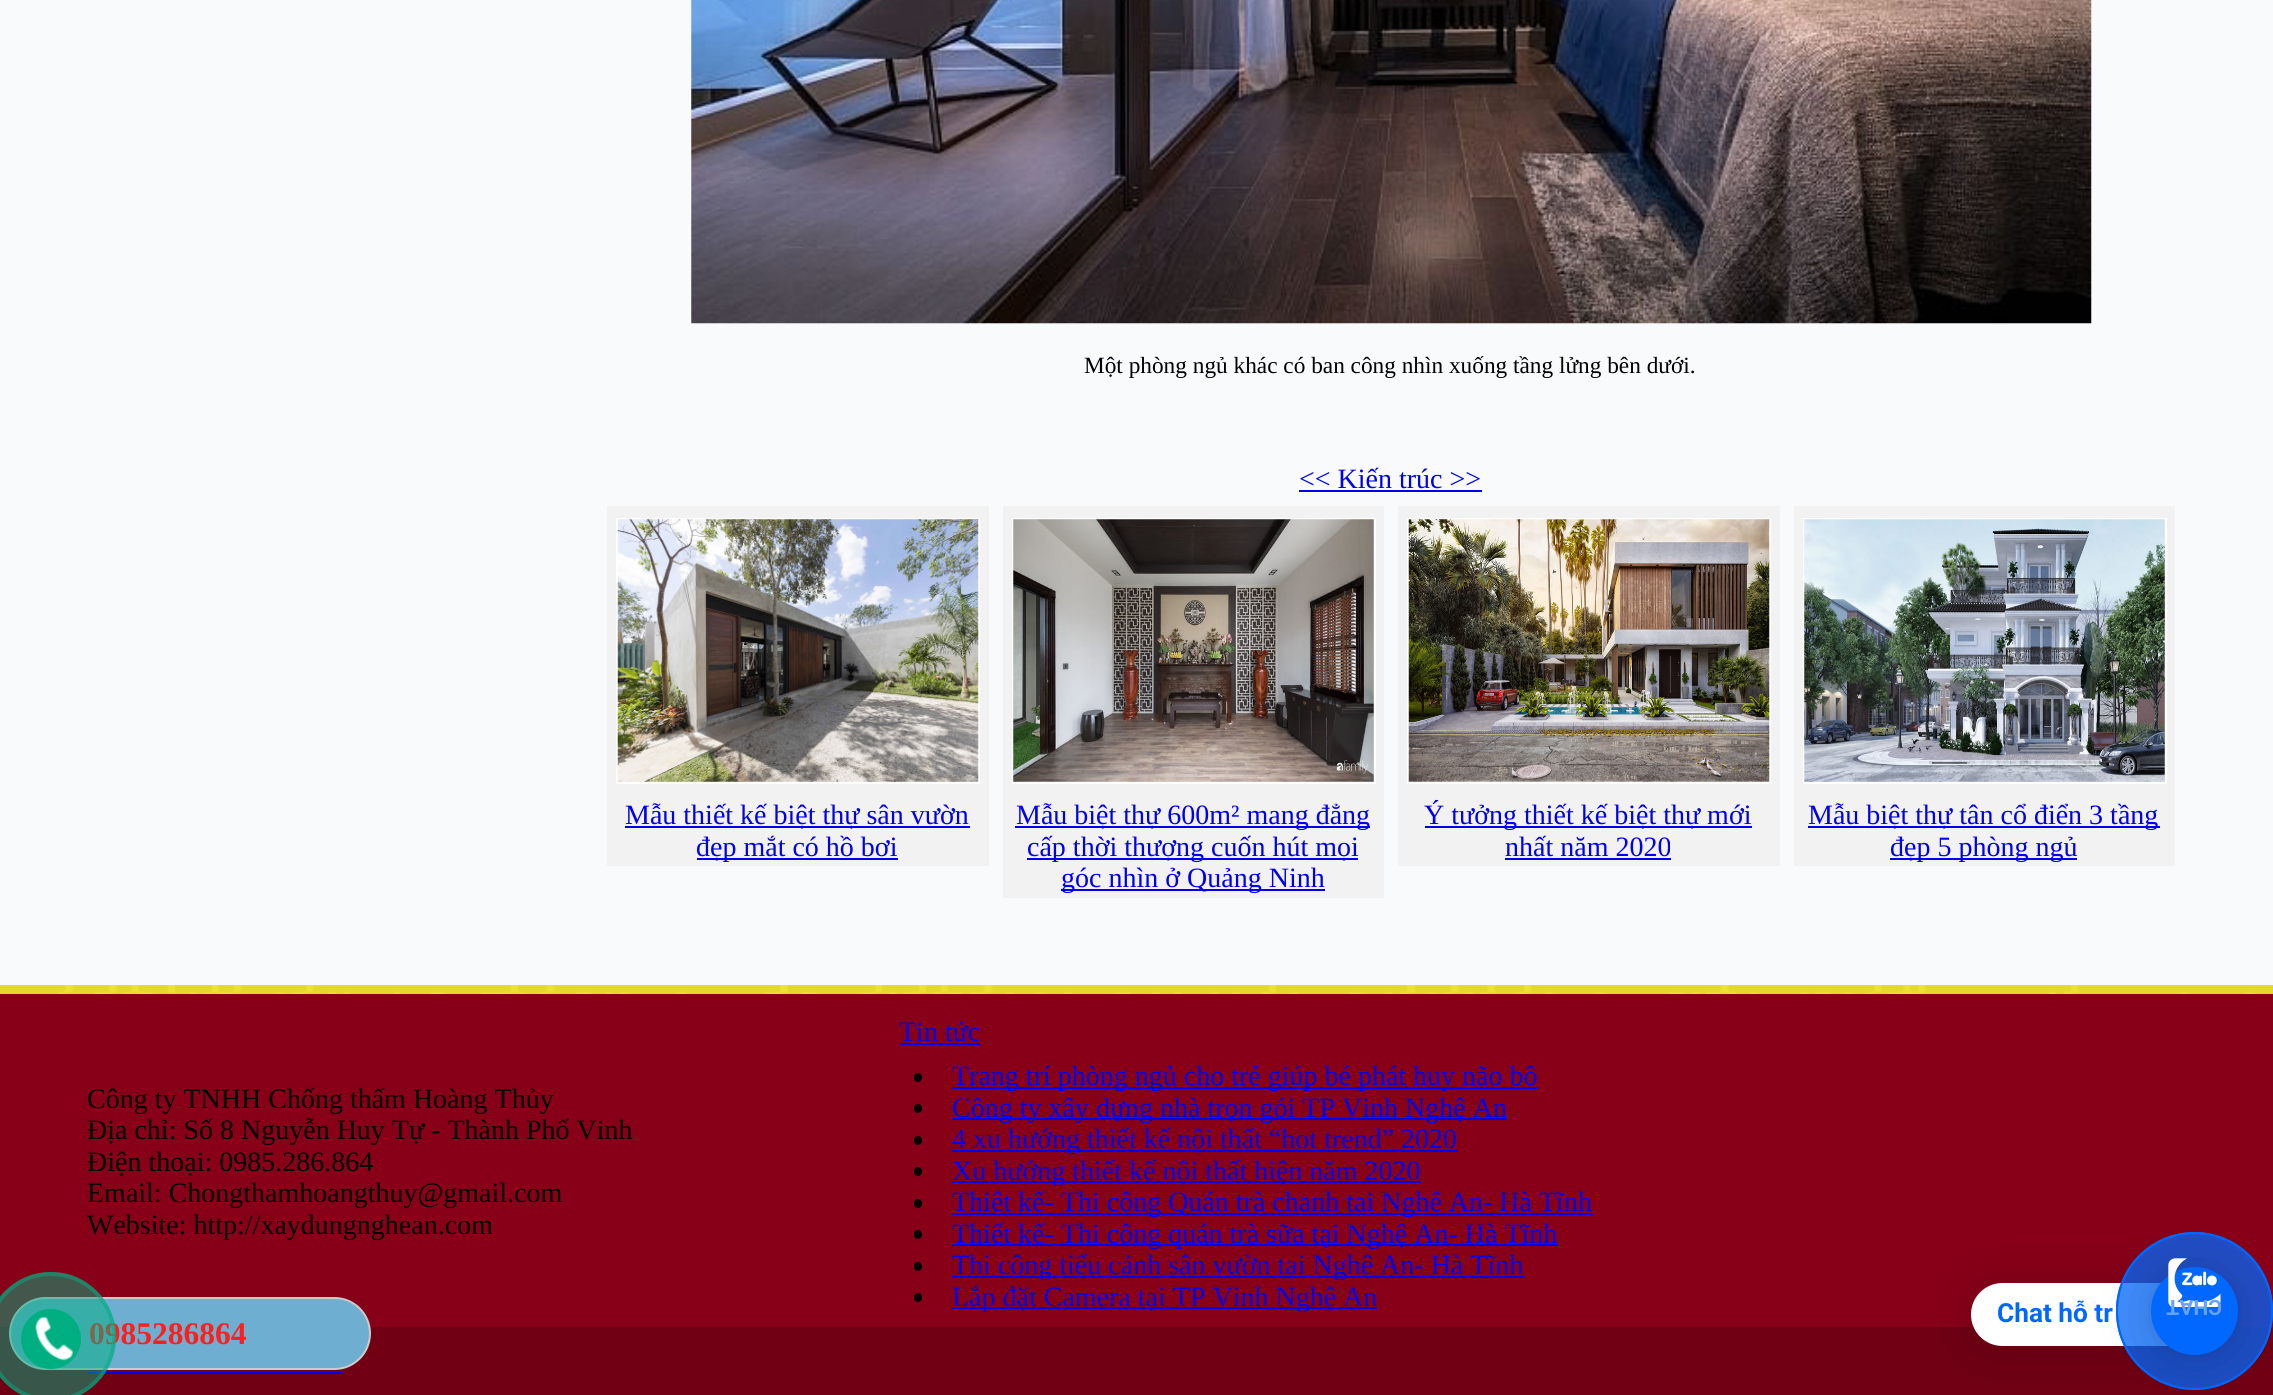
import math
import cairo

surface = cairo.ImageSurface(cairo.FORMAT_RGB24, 2273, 1395)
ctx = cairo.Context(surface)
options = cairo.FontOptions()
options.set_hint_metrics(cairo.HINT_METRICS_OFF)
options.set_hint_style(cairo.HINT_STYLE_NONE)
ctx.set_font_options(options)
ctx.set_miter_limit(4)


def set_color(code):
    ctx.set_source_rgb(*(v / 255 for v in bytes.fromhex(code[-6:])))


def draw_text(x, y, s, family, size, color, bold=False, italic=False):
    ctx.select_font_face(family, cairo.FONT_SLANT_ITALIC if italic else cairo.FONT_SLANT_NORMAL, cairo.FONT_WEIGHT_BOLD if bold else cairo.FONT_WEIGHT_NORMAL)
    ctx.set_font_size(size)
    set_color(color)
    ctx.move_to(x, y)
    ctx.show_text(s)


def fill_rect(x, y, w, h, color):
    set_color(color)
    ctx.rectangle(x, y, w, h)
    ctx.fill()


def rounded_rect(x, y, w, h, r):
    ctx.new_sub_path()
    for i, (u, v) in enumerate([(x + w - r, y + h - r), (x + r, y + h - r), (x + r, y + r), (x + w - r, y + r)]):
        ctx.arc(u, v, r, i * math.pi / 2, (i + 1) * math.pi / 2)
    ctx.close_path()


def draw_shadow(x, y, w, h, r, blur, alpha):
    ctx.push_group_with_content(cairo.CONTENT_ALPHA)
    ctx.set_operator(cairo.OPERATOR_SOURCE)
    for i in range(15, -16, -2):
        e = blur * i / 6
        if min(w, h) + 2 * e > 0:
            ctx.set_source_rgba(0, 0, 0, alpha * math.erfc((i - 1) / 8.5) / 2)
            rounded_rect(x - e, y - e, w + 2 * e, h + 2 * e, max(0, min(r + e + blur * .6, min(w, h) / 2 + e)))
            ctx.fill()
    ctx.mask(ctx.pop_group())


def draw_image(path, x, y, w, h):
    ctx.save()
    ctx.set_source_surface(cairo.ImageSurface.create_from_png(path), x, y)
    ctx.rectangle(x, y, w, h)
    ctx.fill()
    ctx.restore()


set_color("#f8fafc")
ctx.paint()
draw_image("assets/img1.png", 691, 0, 1401, 324)
draw_text(1084, 373, "Một phòng ngủ khác có ban công nhìn xuống tầng lửng bên dưới.", "Liberation Serif", 23.3, "#000000")
draw_text(1299, 488, "<< Kiến trúc >>", "Liberation Serif", 28, "#0000ee")
fill_rect(1299, 490, 183, 2, "#0000ee")
fill_rect(607, 506, 382, 360, "#f2f2f2")
ctx.rectangle(617, 519, 362, 264)
set_color("#ffffff")
ctx.stroke()
draw_image("assets/img2.png", 617, 519, 362, 263)
fill_rect(625, 826, 345, 2, "#0000ee")
draw_text(625, 824, "Mẫu thiết kế biệt thự sân vườn", "Liberation Serif", 28, "#0000ee")
fill_rect(697, 858, 201, 2, "#0000ee")
draw_text(696, 856, "đẹp mắt có hồ bơi", "Liberation Serif", 28, "#0000ee")
fill_rect(1003, 506, 381, 392, "#f2f2f2")
ctx.rectangle(1013, 519, 362, 264)
set_color("#ffffff")
ctx.stroke()
draw_image("assets/img3.png", 1013, 519, 361, 263)
fill_rect(1015, 826, 355, 2, "#0000ee")
draw_text(1016, 824, "Mẫu biệt thự 600m² mang đẳng", "Liberation Serif", 28, "#0000ee")
fill_rect(1027, 858, 331, 2, "#0000ee")
draw_text(1027, 856, "cấp thời thượng cuốn hút mọi", "Liberation Serif", 28, "#0000ee")
fill_rect(1061, 889, 264, 2, "#0000ee")
draw_text(1061, 887, "góc nhìn ở Quảng Ninh", "Liberation Serif", 28, "#0000ee")
fill_rect(1398, 506, 382, 360, "#f2f2f2")
ctx.rectangle(1408, 519, 362, 264)
set_color("#ffffff")
ctx.stroke()
draw_image("assets/img4.png", 1408, 519, 362, 263)
fill_rect(1425, 826, 327, 2, "#0000ee")
draw_text(1424, 824, "Ý tưởng thiết kế biệt thự mới", "Liberation Serif", 28, "#0000ee")
draw_text(1505, 856, "nhất năm 2020", "Liberation Serif", 28, "#0000ee")
fill_rect(1505, 858, 166, 2, "#0000ee")
fill_rect(1794, 506, 381, 360, "#f2f2f2")
ctx.rectangle(1804, 519, 362, 264)
set_color("#ffffff")
ctx.stroke()
draw_image("assets/img5.png", 1804, 519, 361, 263)
fill_rect(1808, 826, 352, 2, "#0000ee")
draw_text(1808, 824, "Mẫu biệt thự tân cổ điển 3 tầng", "Liberation Serif", 28, "#0000ee")
fill_rect(1890, 858, 187, 2, "#0000ee")
draw_text(1890, 856, "đẹp 5 phòng ngủ", "Liberation Serif", 28, "#0000ee")
fill_rect(0, 985, 2273, 9, "#ebe226")
draw_image("assets/img6.png", 0, 985, 2273, 9)
fill_rect(0, 994, 2273, 333, "#880018")
draw_text(87, 1108, "Công ty TNHH Chống thấm Hoàng Thủy", "Liberation Serif", 28, "#000000")
draw_text(87, 1139, "Địa chỉ: Số 8 Nguyễn Huy Tự - Thành Phố Vinh", "Liberation Serif", 28, "#000000")
draw_text(87, 1171, "Điện thoại: 0985.286.864", "Liberation Serif", 28, "#000000")
draw_text(87, 1202, "Email: Chongthamhoangthuy@gmail.com", "Liberation Serif", 28, "#000000")
draw_text(87, 1234, "Website: http://xaydungnghean.com", "Liberation Serif", 28, "#000000")
draw_text(899, 1041, "Tin tức", "Liberation Serif", 28, "#0000ee")
fill_rect(900, 1043, 80, 2, "#0000ee")
set_color("#000000")
rounded_rect(914, 1073, 8, 9, 4)
ctx.fill()
fill_rect(952, 1087, 586, 2, "#0000ee")
draw_text(952, 1085, "Trang trí phòng ngủ cho trẻ giúp bé phát huy não bộ", "Liberation Serif", 28, "#0000ee")
set_color("#000000")
rounded_rect(914, 1104, 8, 9, 4)
ctx.fill()
fill_rect(952, 1118, 555, 2, "#0000ee")
draw_text(952, 1117, "Công ty xây dựng nhà trọn gói TP Vinh Nghệ An", "Liberation Serif", 28, "#0000ee")
set_color("#000000")
rounded_rect(914, 1136, 8, 9, 4)
ctx.fill()
fill_rect(952, 1150, 506, 2, "#0000ee")
draw_text(952, 1148, "4 xu hướng thiết kế nội thất “hot trend” 2020", "Liberation Serif", 28, "#0000ee")
set_color("#000000")
rounded_rect(914, 1167, 8, 9, 4)
ctx.fill()
fill_rect(952, 1181, 469, 2, "#0000ee")
draw_text(952, 1180, "Xu hướng thiết kế nội thất hiện năm 2020", "Liberation Serif", 28, "#0000ee")
set_color("#000000")
rounded_rect(914, 1199, 8, 9, 4)
ctx.fill()
fill_rect(952, 1213, 641, 2, "#0000ee")
draw_text(952, 1211, "Thiêt kế- Thi công Quán trà chanh tại Nghệ An- Hà Tĩnh", "Liberation Serif", 28, "#0000ee")
set_color("#000000")
rounded_rect(914, 1230, 8, 9, 4)
ctx.fill()
fill_rect(952, 1244, 606, 2, "#0000ee")
draw_text(952, 1243, "Thiết kế- Thi công quán trà sữa tại Nghệ An- Hà Tĩnh", "Liberation Serif", 28, "#0000ee")
set_color("#000000")
rounded_rect(914, 1262, 8, 9, 4)
ctx.fill()
fill_rect(952, 1276, 572, 2, "#0000ee")
draw_text(952, 1274, "Thi công tiểu cảnh sân vườn tại Nghệ An- Hà Tĩnh", "Liberation Serif", 28, "#0000ee")
set_color("#000000")
rounded_rect(914, 1293, 8, 9, 4)
ctx.fill()
fill_rect(952, 1307, 425, 2, "#0000ee")
draw_text(952, 1306, "Lắp đặt Camera tại TP Vinh Nghệ An", "Liberation Serif", 28, "#0000ee")
fill_rect(0, 1327, 2273, 68, "#710014")
fill_rect(88, 1372, 255, 2, "#0000ee")
set_color("#000000")
draw_shadow(1971, 1286, 201, 63, 31.5, 28, 0.16)
set_color("#ffffff")
ctx.new_path()
ctx.move_to(2002.5, 1283)
ctx.line_to(2172, 1283)
ctx.line_to(2172, 1346)
ctx.line_to(2002.5, 1346)
ctx.curve_to(1985, 1346, 1971, 1332, 1971, 1314.5)
ctx.curve_to(1971, 1297, 1985, 1283, 2002.5, 1283)
ctx.close_path()
ctx.fill()
draw_text(1997, 1322, "Chat hỗ tr", "Roboto", 26.25, "#0068ff", bold=True)
ctx.set_source_rgba(0, 0.408, 1, 0.5)
rounded_rect(2117, 1233, 155, 156, 77.5)
ctx.fill_preserve()
set_color("#0068ff")
ctx.stroke()
ctx.set_source_rgba(0, 0.408, 1, 0.5)
rounded_rect(2117, 1233, 155, 156, 77.5)
ctx.fill_preserve()
set_color("#0068ff")
ctx.stroke()
set_color("#000000")
draw_shadow(2151, 1271, 87, 87, 43.5, 28, 0.16)
draw_shadow(2151, 1269, 87, 87, 43.5, 5, 0.06)
set_color("#0068ff")
rounded_rect(2151, 1267, 87, 88, 43.5)
ctx.fill()
draw_image("assets/img7.png", 2168, 1258, 53, 49)
ctx.save()
ctx.translate(2222, 1300)
ctx.rotate(180 * math.pi / 180)
draw_text(0, 0, "CHAT", "Roboto", 21, "#64a3ff", bold=True)
ctx.restore()
set_color("#6eaed1")
rounded_rect(10, 1298, 360, 71, 35.5)
ctx.fill_preserve()
set_color("#cccccc")
ctx.stroke()
draw_text(89, 1344, "0985286864", "Liberation Serif", 31.5, "#ff1e1e", bold=True)
ctx.set_source_rgba(0, 0.686, 0.506, 0.5)
ctx.new_path()
ctx.arc(51, 1337, 65, 0, 2 * math.pi)
ctx.fill()
ctx.arc(51, 1337, 63, 0, 2 * math.pi)
ctx.set_line_width(4)
ctx.stroke()
set_color("#00af81")
ctx.arc(51, 1339, 30, 0, 2 * math.pi)
ctx.fill()
draw_image("assets/img8.png", 35, 1316, 38, 45)
surface.write_to_png("output.png")
